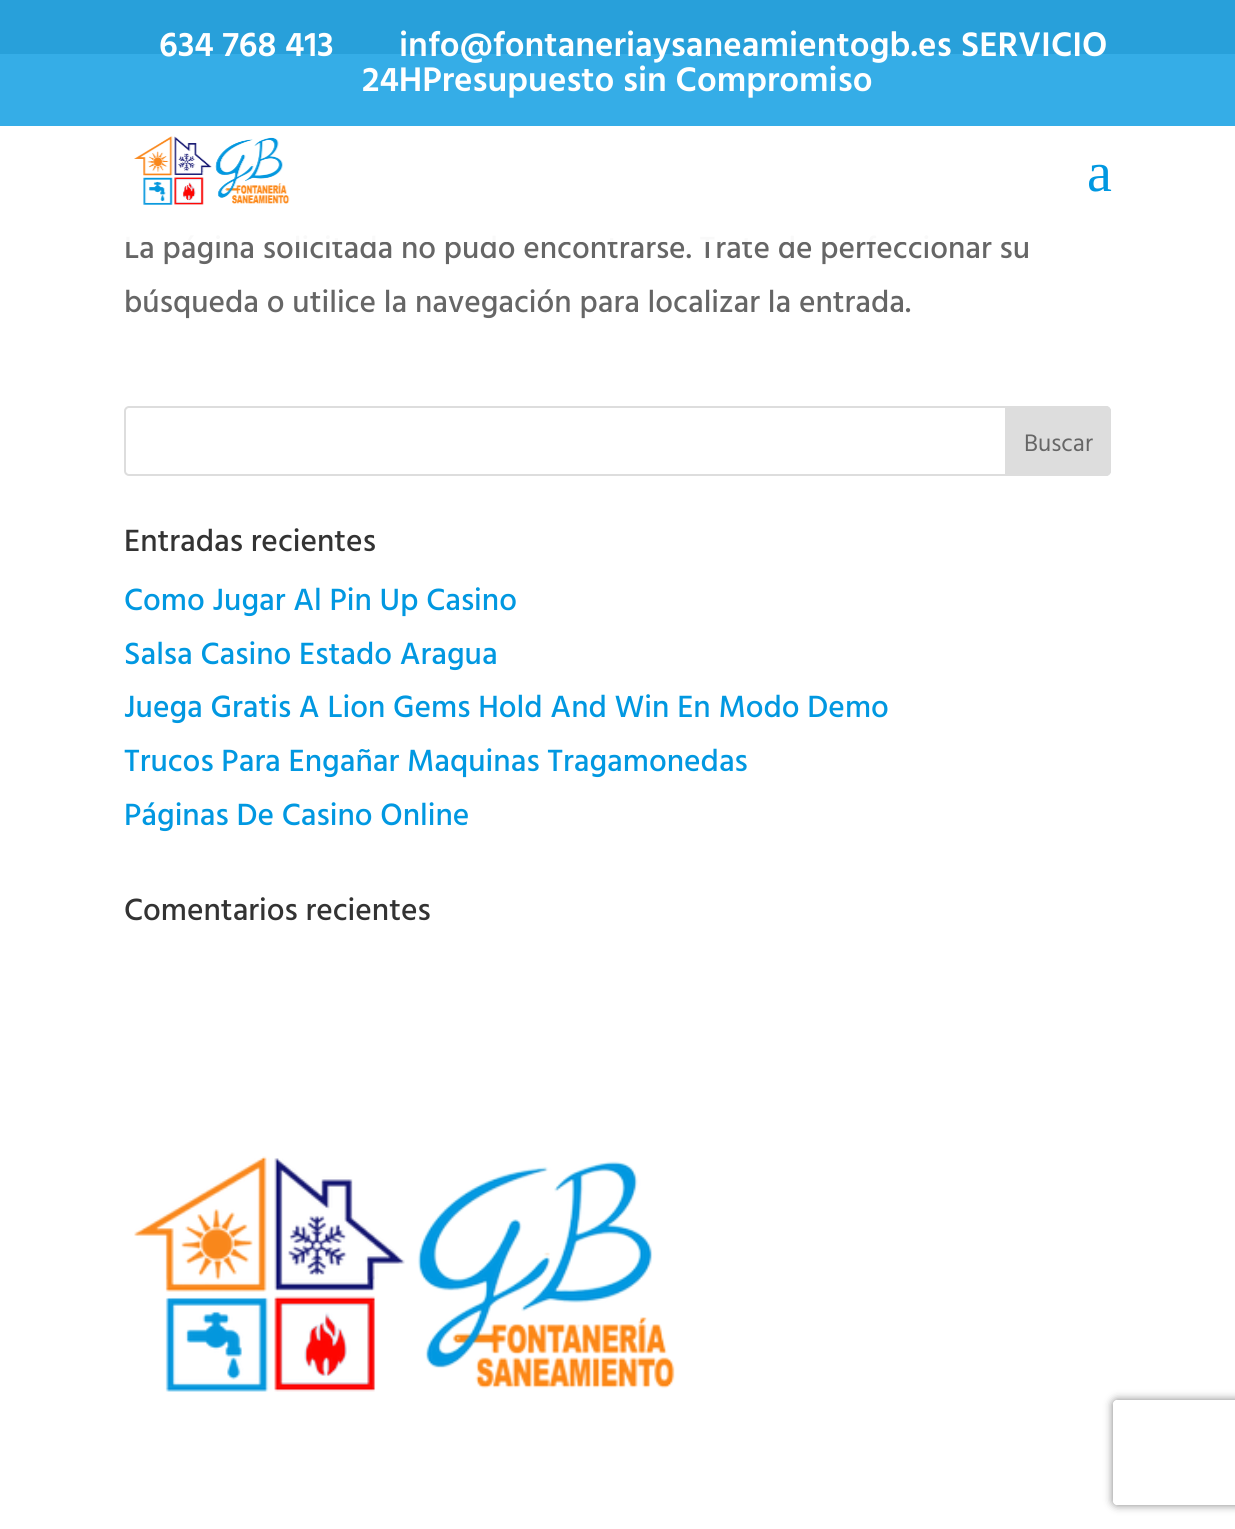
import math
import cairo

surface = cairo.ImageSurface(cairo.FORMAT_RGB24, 1235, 1529)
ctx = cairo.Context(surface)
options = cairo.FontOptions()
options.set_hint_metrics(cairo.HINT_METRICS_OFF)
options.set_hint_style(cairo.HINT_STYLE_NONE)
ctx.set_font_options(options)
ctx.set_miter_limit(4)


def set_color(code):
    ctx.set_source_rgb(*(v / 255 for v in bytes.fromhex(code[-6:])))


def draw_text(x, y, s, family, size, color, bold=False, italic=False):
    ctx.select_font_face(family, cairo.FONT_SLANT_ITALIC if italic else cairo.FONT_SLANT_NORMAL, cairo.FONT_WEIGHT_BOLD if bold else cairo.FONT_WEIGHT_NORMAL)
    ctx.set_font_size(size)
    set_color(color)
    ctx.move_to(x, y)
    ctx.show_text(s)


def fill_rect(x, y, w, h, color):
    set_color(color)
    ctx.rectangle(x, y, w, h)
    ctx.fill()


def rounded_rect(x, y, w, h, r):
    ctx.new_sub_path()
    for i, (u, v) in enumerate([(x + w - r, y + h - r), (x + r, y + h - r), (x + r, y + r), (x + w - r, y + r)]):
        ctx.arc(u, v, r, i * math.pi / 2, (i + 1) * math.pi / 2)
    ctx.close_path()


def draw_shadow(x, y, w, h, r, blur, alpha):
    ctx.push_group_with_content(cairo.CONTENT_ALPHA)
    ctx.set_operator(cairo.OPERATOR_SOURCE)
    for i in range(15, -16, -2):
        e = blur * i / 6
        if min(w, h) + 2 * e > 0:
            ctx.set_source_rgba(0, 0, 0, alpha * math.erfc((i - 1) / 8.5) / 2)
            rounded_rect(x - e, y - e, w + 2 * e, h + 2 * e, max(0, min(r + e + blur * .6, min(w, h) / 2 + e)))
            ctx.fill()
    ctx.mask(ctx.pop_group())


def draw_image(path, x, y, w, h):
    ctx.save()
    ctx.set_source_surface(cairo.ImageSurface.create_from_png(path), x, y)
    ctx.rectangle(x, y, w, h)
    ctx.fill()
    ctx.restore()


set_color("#c1c1c1")
ctx.paint()
fill_rect(0, 54, 1235, 1475, "#ffffff")
ctx.set_source_rgba(0.004, 0.596, 0.882, 0.79)
ctx.rectangle(0, 0, 1235, 126)
ctx.fill()
draw_text(159, 56, "634 768 413", "Hind SemiBold", 35, "#ffffff")
draw_text(399, 56, "info@fontaneriaysaneamientogb.es", "Hind SemiBold", 35, "#ffffff")
draw_text(961, 56, "SERVICIO", "Hind SemiBold", 35, "#ffffff")
draw_text(362, 91, "24HPresupuesto sin Compromiso", "Hind SemiBold", 35, "#ffffff")
draw_text(124, 258, "La página solicitada no pudo encontrarse. Trate de perfeccionar su", "Hind Medium", 31.5, "#666666")
ctx.set_source_rgba(1, 1, 1, 0.96)
ctx.rectangle(125, 235, 883, 7)
ctx.fill()
draw_image("assets/img1.png", 134, 136, 156, 69)
draw_text(1087, 191, "a", "Liberation Serif", 56, "#0198e1")
draw_text(124, 312, "búsqueda o utilice la navegación para localizar la entrada.", "Hind Medium", 31.5, "#666666")
rounded_rect(125, 407, 985, 68, 4)
set_color("#dddddd")
ctx.stroke()
ctx.new_path()
ctx.move_to(1006, 407)
ctx.line_to(1106, 407)
ctx.curve_to(1108, 407, 1110, 409, 1110, 411)
ctx.line_to(1110, 471)
ctx.curve_to(1110, 473, 1108, 475, 1106, 475)
ctx.line_to(1006, 475)
ctx.close_path()
ctx.fill_preserve()
ctx.stroke()
draw_text(1024, 451, "Buscar", "Hind", 24.5, "#666666")
draw_text(124, 551, "Entradas recientes", "Hind Medium", 31.5, "#333333")
draw_text(124, 610, "Como Jugar Al Pin Up Casino", "Hind Medium", 31.5, "#0198e1")
draw_text(124, 664, "Salsa Casino Estado Aragua", "Hind Medium", 31.5, "#0198e1")
draw_text(124, 717, "Juega Gratis A Lion Gems Hold And Win En Modo Demo", "Hind Medium", 31.5, "#0198e1")
draw_text(124, 771, "Trucos Para Engañar Maquinas Tragamonedas", "Hind Medium", 31.5, "#0198e1")
draw_text(124, 825, "Páginas De Casino Online", "Hind Medium", 31.5, "#0198e1")
draw_text(124, 920, "Comentarios recientes", "Hind Medium", 31.5, "#333333")
draw_image("assets/img2.png", 134, 1156, 541, 236)
ctx.save()
ctx.set_fill_rule(cairo.FILL_RULE_EVEN_ODD)
ctx.new_path()
ctx.move_to(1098, 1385)
ctx.line_to(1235, 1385)
ctx.line_to(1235, 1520)
ctx.line_to(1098, 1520)
ctx.close_path()
ctx.move_to(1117, 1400)
ctx.line_to(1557, 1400)
ctx.curve_to(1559, 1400, 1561, 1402, 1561, 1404)
ctx.line_to(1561, 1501)
ctx.curve_to(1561, 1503, 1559, 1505, 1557, 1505)
ctx.line_to(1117, 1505)
ctx.curve_to(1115, 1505, 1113, 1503, 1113, 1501)
ctx.line_to(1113, 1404)
ctx.curve_to(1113, 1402, 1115, 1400, 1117, 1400)
ctx.close_path()
ctx.clip()
set_color("#808080")
draw_shadow(1113, 1400, 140, 105, 4, 4.5, 1)
ctx.restore()
surface.write_to_png("output.png")
